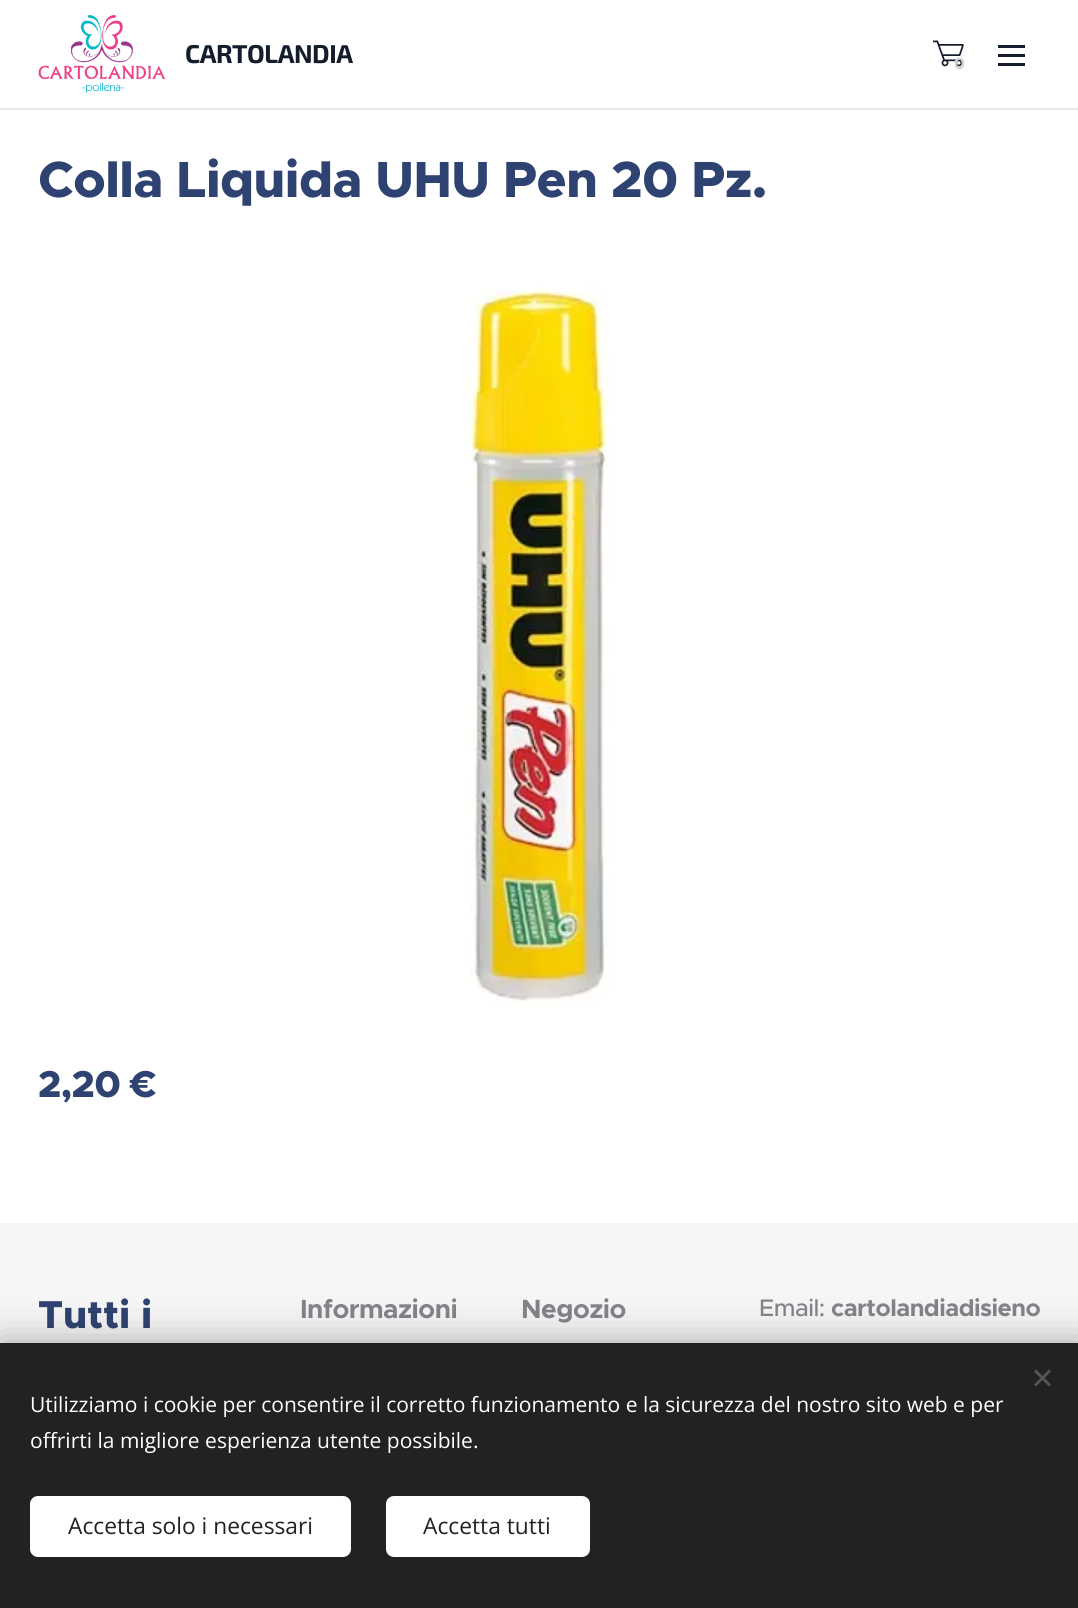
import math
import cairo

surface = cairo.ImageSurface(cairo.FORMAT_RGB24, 1078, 1608)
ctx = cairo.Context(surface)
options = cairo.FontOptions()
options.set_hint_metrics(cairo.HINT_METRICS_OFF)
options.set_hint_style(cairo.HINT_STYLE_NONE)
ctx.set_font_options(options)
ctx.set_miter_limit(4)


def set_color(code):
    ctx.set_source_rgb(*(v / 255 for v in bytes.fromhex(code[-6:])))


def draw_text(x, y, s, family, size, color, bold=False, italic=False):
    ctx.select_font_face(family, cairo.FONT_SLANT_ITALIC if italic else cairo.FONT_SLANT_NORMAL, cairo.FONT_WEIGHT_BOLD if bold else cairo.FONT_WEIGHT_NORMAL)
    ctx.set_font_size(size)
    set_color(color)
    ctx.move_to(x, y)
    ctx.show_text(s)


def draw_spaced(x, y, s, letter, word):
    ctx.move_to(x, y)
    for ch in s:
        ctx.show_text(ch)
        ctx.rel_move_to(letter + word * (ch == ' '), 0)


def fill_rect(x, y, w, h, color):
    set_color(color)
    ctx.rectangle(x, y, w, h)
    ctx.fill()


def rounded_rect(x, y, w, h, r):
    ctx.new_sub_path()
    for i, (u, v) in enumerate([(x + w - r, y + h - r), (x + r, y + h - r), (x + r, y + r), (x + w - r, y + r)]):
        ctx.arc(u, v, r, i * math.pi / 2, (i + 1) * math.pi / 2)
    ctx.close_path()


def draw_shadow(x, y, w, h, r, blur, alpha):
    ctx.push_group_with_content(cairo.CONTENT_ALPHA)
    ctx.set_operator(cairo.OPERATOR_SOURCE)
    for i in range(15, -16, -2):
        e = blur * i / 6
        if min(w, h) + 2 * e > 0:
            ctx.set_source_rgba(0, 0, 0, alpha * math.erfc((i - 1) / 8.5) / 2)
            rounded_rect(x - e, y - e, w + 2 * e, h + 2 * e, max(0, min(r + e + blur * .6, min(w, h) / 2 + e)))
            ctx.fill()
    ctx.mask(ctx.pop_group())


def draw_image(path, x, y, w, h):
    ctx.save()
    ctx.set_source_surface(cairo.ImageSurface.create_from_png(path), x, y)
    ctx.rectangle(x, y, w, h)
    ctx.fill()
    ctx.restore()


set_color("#ffffff")
ctx.paint()
fill_rect(0, 108, 1078, 2, "#e8e8e8")
draw_image("assets/img1.png", 38, 15, 128, 78)
ctx.select_font_face("Exo 2", cairo.FONT_SLANT_NORMAL, cairo.FONT_WEIGHT_BOLD)
ctx.set_font_size(25.75)
set_color("#141c2d")
draw_spaced(185, 63, "CARTOLANDIA", -0.5, 0)
draw_image("assets/img2.png", 933, 40, 31, 27)
draw_text(954, 69, "0", "Montserrat", 16, "#d0d1d5", bold=True)
fill_rect(998, 54, 27, 3, "#141c2d")
fill_rect(998, 45, 27, 3, "#141c2d")
fill_rect(998, 63, 27, 3, "#141c2d")
ctx.select_font_face("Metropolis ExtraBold")
ctx.set_font_size(51)
set_color("#2e4371")
draw_spaced(38, 197, "Colla Liquida UHU Pen 20 Pz.", -0.5, 0)
draw_image("assets/img3.png", 464, 284, 151, 723)
ctx.set_font_size(37.5)
draw_spaced(38, 1097, "2,20 €", -0.5, 0)
fill_rect(0, 1223, 1078, 120, "#f5f5f5")
draw_text(38, 1328, "Tutti i", "Metropolis ExtraBold", 39, "#2e4371")
ctx.select_font_face("Metropolis", cairo.FONT_SLANT_NORMAL, cairo.FONT_WEIGHT_BOLD)
ctx.set_font_size(26.5)
set_color("#82848a")
draw_spaced(300, 1318, "Informazioni", -0.5, 0)
draw_spaced(521, 1318, "Negozio", -0.5, 0)
ctx.select_font_face("Metropolis Medium")
ctx.set_font_size(24)
draw_spaced(759, 1316, "Email:", -0.5, 0)
ctx.select_font_face("Metropolis", cairo.FONT_SLANT_NORMAL, cairo.FONT_WEIGHT_BOLD)
draw_spaced(831, 1316, "cartolandiadisieno", -0.5, 0)
set_color("#000000")
draw_shadow(0, 1343, 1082, 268, 0, 19, 0.33)
fill_rect(0, 1343, 1078, 265, "#222222")
set_color("#555555")
ctx.new_path()
ctx.move_to(1034, 1384.5)
ctx.line_to(1049, 1369.5)
ctx.line_to(1051, 1371.5)
ctx.line_to(1036, 1386.5)
ctx.close_path()
ctx.fill()
ctx.new_path()
ctx.move_to(1036, 1369.5)
ctx.line_to(1051, 1384.5)
ctx.line_to(1049, 1386.5)
ctx.line_to(1034, 1371.5)
ctx.close_path()
ctx.fill()
draw_text(30, 1412, "Utilizziamo i cookie per consentire il corretto funzionamento e la sicurezza del nostro sito web e per", "Open Sans", 21, "#ffffff")
draw_text(30, 1448, "offrirti la migliore esperienza utente possibile.", "Open Sans", 21, "#ffffff")
rounded_rect(30, 1496, 321, 61, 8)
ctx.fill()
draw_text(68, 1534, "Accetta solo i necessari", "Open Sans", 22.75, "#222222")
set_color("#ffffff")
rounded_rect(386, 1496, 204, 61, 8)
ctx.fill()
draw_text(423, 1534, "Accetta tutti", "Open Sans", 22.75, "#222222")
surface.write_to_png("output.png")
